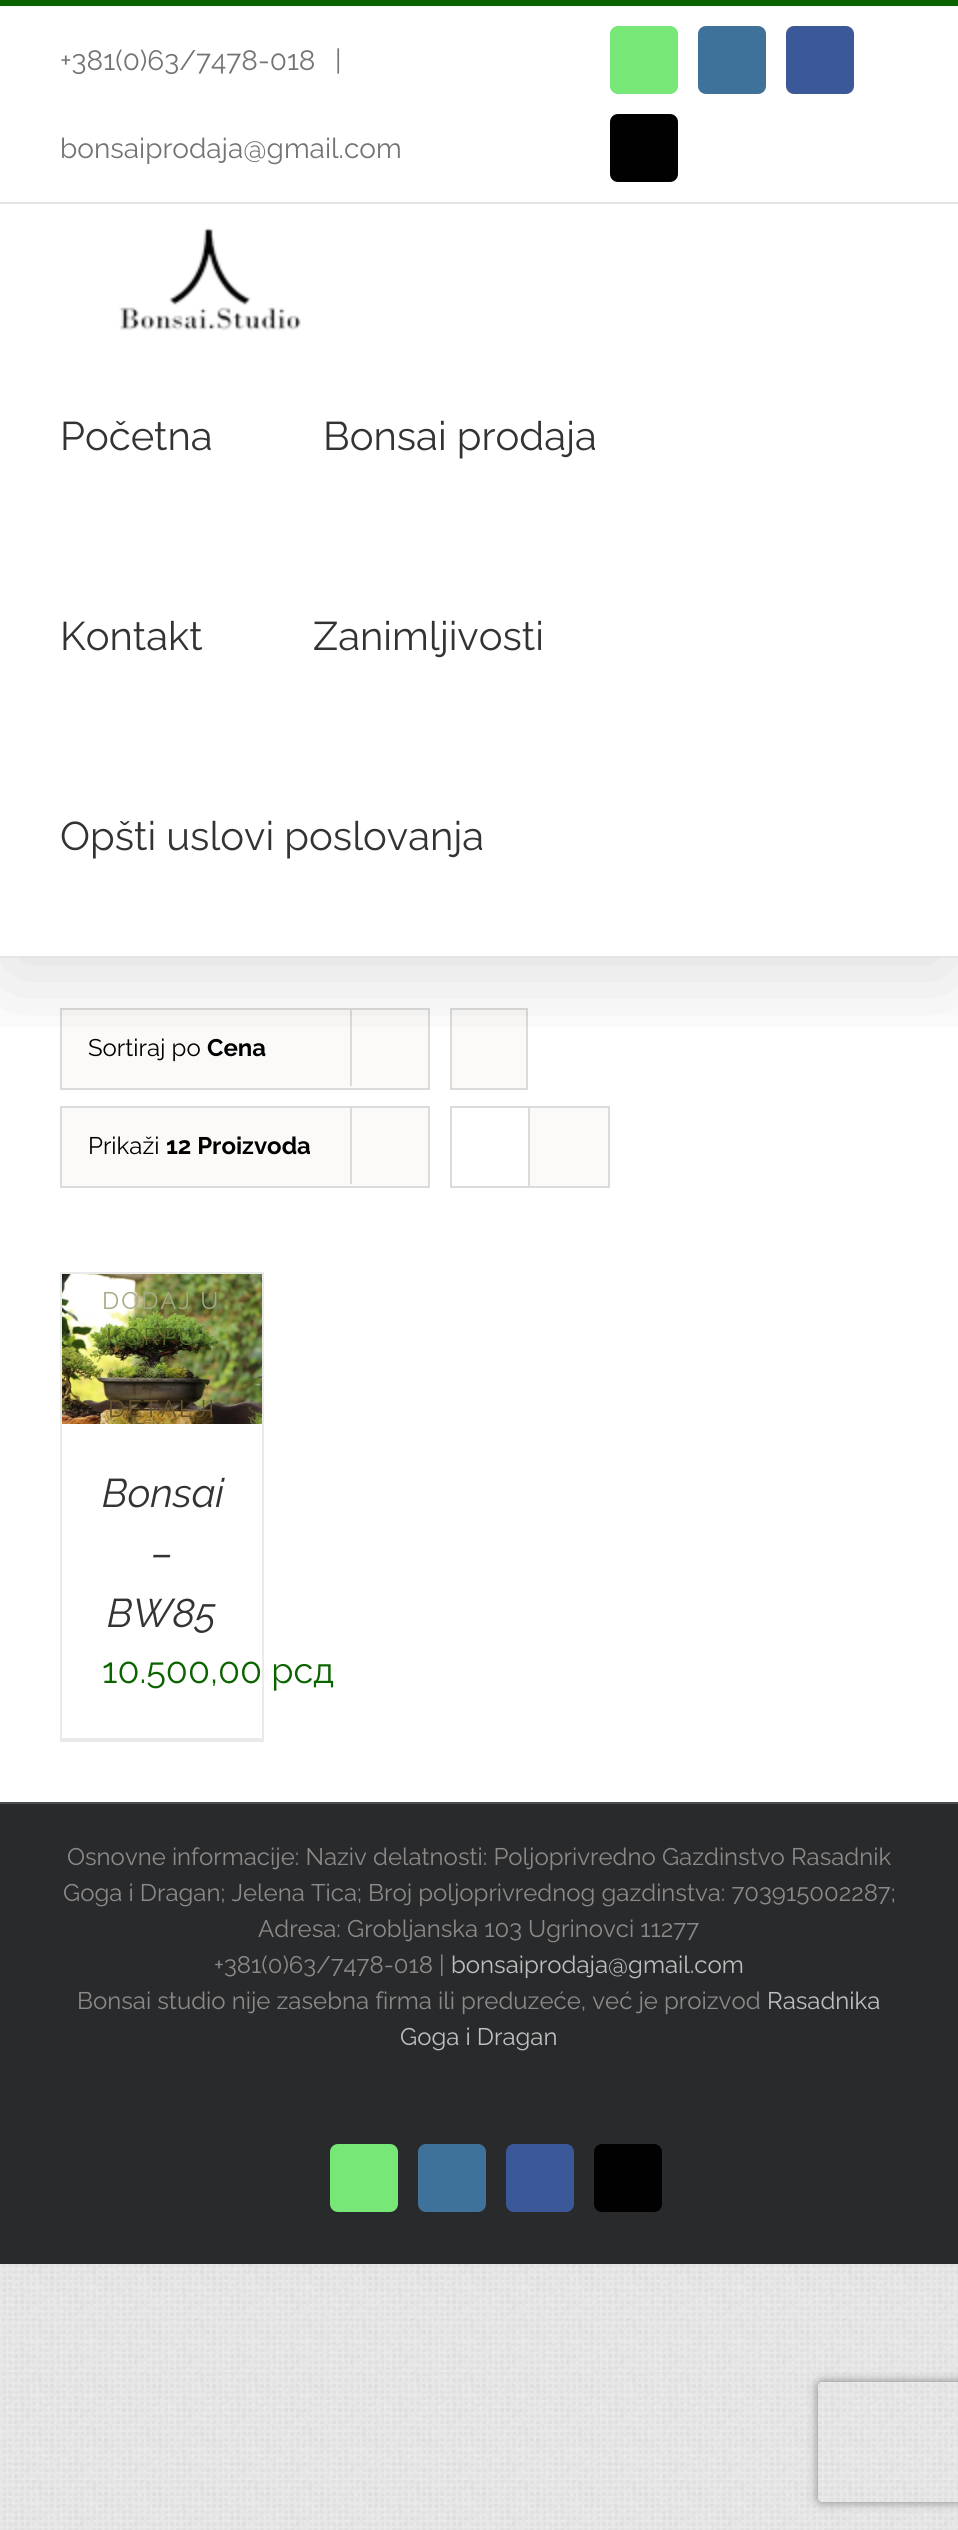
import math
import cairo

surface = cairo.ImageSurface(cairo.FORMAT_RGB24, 958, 2530)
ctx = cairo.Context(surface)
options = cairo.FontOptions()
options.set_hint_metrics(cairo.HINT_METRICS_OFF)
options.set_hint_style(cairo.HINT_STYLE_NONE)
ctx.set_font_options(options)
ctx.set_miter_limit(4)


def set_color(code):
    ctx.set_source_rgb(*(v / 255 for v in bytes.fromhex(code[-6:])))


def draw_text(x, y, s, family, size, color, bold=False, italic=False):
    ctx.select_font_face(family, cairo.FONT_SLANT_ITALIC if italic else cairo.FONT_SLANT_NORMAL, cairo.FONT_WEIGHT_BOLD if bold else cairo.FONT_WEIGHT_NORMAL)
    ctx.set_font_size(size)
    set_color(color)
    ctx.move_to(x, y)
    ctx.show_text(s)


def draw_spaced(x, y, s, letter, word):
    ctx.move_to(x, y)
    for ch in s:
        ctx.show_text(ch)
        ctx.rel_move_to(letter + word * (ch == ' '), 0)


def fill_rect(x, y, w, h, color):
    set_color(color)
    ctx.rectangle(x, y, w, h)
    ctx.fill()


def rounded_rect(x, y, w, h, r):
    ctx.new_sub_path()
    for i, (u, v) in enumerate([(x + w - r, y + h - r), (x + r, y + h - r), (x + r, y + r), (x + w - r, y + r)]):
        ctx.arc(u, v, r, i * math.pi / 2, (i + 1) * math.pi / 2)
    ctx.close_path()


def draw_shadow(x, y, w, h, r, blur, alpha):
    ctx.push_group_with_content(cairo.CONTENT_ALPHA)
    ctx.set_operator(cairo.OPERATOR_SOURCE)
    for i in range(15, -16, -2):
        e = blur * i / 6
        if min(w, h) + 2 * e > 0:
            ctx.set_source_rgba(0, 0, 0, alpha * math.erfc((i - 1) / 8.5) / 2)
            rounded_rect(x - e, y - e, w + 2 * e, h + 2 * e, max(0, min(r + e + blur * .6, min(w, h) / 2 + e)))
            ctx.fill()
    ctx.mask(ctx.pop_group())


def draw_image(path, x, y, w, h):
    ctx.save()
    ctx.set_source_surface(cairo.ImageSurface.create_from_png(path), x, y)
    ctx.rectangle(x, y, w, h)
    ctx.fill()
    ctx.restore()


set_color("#ffffff")
ctx.paint()
draw_image("assets/img1.png", 0, 2264, 958, 266)
set_color("#fbfaf9")
ctx.rectangle(61, 1009, 368, 80)
ctx.fill_preserve()
set_color("#dbdbdb")
ctx.stroke()
fill_rect(350, 1008, 2, 78, "#dbdbdb")
set_color("#fbfaf9")
ctx.rectangle(451, 1009, 76, 80)
ctx.fill_preserve()
set_color("#dbdbdb")
ctx.stroke()
set_color("#fbfaf9")
ctx.rectangle(61, 1107, 368, 80)
ctx.fill_preserve()
set_color("#dbdbdb")
ctx.stroke()
fill_rect(350, 1106, 2, 78, "#dbdbdb")
ctx.rectangle(451, 1107, 158, 80)
ctx.stroke()
fill_rect(528, 1108, 2, 78, "#dbdbdb")
fill_rect(530, 1108, 78, 78, "#fbfaf9")
ctx.save()
ctx.rectangle(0, 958, 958, 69)
ctx.clip()
set_color("#000000")
draw_shadow(4, 24, 950, 950, 0, 50, 0.14)
ctx.restore()
fill_rect(0, 0, 958, 6, "#0b6300")
fill_rect(0, 202, 958, 2, "#e5e5e5")
draw_text(60, 70, "+381(0)63/7478-018", "Raleway", 28, "#747474")
draw_text(335, 70, "|", "Raleway", 28, "#747474")
draw_text(60, 158, "bonsaiprodaja@gmail.com", "Raleway", 28, "#747474")
set_color("#77e878")
rounded_rect(611, 27, 66, 66, 7)
ctx.fill_preserve()
ctx.stroke()
set_color("#3f729b")
rounded_rect(699, 27, 66, 66, 7)
ctx.fill_preserve()
ctx.stroke()
set_color("#3b5998")
rounded_rect(787, 27, 66, 66, 7)
ctx.fill_preserve()
ctx.stroke()
set_color("#010101")
rounded_rect(611, 115, 66, 66, 7)
ctx.fill_preserve()
ctx.stroke()
fill_rect(0, 956, 958, 2, "#e5e5e5")
draw_image("assets/img2.png", 119, 227, 182, 104)
draw_text(60, 450, "Početna", "Raleway", 40, "#333333")
draw_text(323, 450, "Bonsai prodaja", "Raleway", 40, "#333333")
draw_text(60, 650, "Kontakt", "Raleway", 40, "#333333")
draw_text(313, 650, "Zanimljivosti", "Raleway", 40, "#333333")
draw_text(60, 850, "Opšti uslovi poslovanja", "Raleway", 40, "#333333")
draw_text(88, 1056, "Sortiraj po", "Raleway", 24, "#000000")
draw_text(207, 1056, "Cena", "Raleway", 24, "#000000", bold=True)
draw_text(88, 1154, "Prikaži", "Raleway", 24, "#000000")
draw_text(166, 1154, "12 Proizvoda", "Raleway", 24, "#000000", bold=True)
fill_rect(60, 1272, 204, 2, "#ebeaea")
fill_rect(262, 1272, 2, 470, "#ebeaea")
fill_rect(60, 1738, 204, 4, "#ebeaea")
fill_rect(60, 1272, 2, 470, "#ebeaea")
draw_image("assets/img3.png", 62, 1274, 200, 150)
ctx.select_font_face("Raleway")
set_color("#a5ab82")
draw_spaced(102, 1309, "DODAJ U", 2, 0)
set_color("#546728")
draw_spaced(106, 1345, "KORPU", 2, 0)
set_color("#65532d")
draw_spaced(108, 1417, "DETALJI", 2, 0)
draw_text(102, 1507, "Bonsai", "Raleway", 40, "#333333", italic=True)
draw_text(151, 1567, "–", "Raleway", 40, "#333333", italic=True)
draw_text(107, 1627, "BW85", "Raleway", 40, "#333333", italic=True)
draw_text(102, 1683, "10.500,00 рсд", "Raleway", 36, "#0b6300")
fill_rect(0, 1804, 958, 460, "#282a2b")
fill_rect(0, 1802, 958, 2, "#4b4c4d")
draw_text(67, 1865, "Osnovne informacije: Naziv delatnosti: Poljoprivredno Gazdinstvo Rasadnik", "Raleway", 24, "#8c8989")
draw_text(63, 1901, "Goga i Dragan; Jelena Tica; Broj poljoprivrednog gazdinstva: 703915002287;", "Raleway", 24, "#8c8989")
draw_text(258, 1937, "Adresa: Grobljanska 103 Ugrinovci 11277", "Raleway", 24, "#8c8989")
draw_text(214, 1973, "+381(0)63/7478-018 |", "Raleway", 24, "#8c8989")
draw_text(451, 1973, "bonsaiprodaja@gmail.com", "Raleway", 24, "#bfbfbf")
draw_text(77, 2009, "Bonsai studio nije zasebna firma ili preduzeće, već je proizvod", "Raleway", 24, "#8c8989")
draw_text(767, 2009, "Rasadnika", "Raleway", 24, "#bfbfbf")
draw_text(400, 2045, "Goga i Dragan", "Raleway", 24, "#bfbfbf")
set_color("#77e878")
rounded_rect(331, 2145, 66, 66, 7)
ctx.fill_preserve()
ctx.stroke()
set_color("#3f729b")
rounded_rect(419, 2145, 66, 66, 7)
ctx.fill_preserve()
ctx.stroke()
set_color("#3b5998")
rounded_rect(507, 2145, 66, 66, 7)
ctx.fill_preserve()
ctx.stroke()
set_color("#010101")
rounded_rect(595, 2145, 66, 66, 7)
ctx.fill_preserve()
ctx.stroke()
ctx.save()
ctx.set_fill_rule(cairo.FILL_RULE_EVEN_ODD)
ctx.new_path()
ctx.move_to(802, 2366)
ctx.line_to(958, 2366)
ctx.line_to(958, 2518)
ctx.line_to(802, 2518)
ctx.close_path()
ctx.move_to(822, 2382)
ctx.line_to(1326, 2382)
ctx.curve_to(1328, 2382, 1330, 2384, 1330, 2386)
ctx.line_to(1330, 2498)
ctx.curve_to(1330, 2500, 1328, 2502, 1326, 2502)
ctx.line_to(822, 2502)
ctx.curve_to(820, 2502, 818, 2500, 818, 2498)
ctx.line_to(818, 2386)
ctx.curve_to(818, 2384, 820, 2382, 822, 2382)
ctx.close_path()
ctx.clip()
set_color("#808080")
draw_shadow(818, 2382, 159, 120, 4, 5, 1)
ctx.restore()
surface.write_to_png("output.png")
